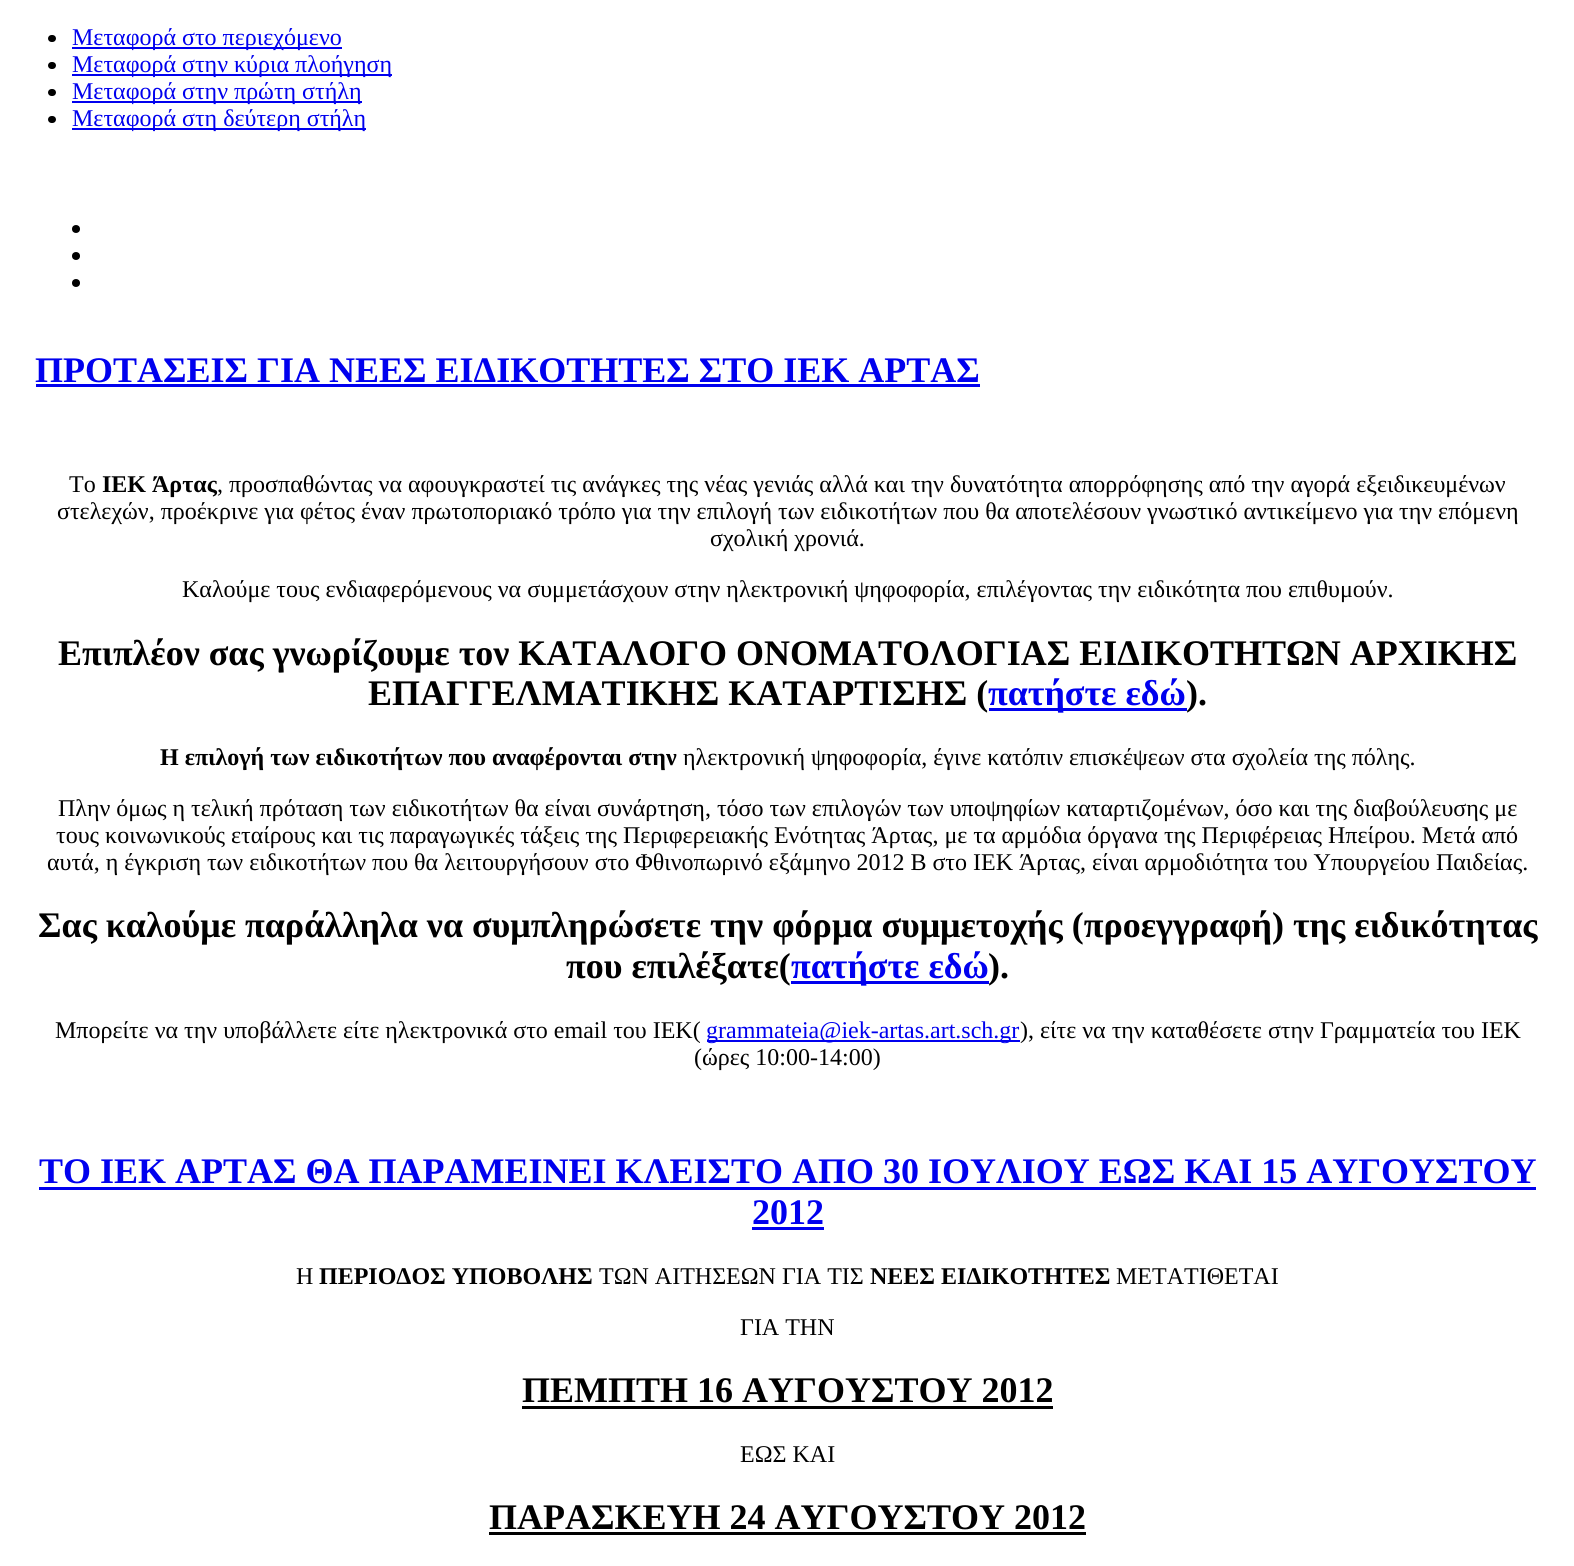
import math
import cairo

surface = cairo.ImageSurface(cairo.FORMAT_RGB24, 1574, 1566)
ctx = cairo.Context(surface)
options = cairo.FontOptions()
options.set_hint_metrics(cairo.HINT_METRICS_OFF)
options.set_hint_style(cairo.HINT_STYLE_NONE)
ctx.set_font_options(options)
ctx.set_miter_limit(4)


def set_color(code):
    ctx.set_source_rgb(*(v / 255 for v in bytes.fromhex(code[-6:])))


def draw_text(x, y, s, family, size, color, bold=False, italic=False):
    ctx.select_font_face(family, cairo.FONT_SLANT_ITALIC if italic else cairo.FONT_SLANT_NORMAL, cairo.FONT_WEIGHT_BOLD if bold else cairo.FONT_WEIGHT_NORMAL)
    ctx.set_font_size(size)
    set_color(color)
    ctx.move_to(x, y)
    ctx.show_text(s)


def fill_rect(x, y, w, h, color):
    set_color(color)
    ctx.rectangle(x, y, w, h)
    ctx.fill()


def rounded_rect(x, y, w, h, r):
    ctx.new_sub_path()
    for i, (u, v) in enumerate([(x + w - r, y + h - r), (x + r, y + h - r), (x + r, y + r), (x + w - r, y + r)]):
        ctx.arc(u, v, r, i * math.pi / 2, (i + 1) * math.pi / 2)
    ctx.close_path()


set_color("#ffffff")
ctx.paint()
set_color("#000000")
rounded_rect(48, 35, 8, 7, 3.5)
ctx.fill()
fill_rect(72, 47, 270, 2, "#0000ee")
draw_text(72, 45, "Μεταφορά στο περιεχόμενο", "Liberation Serif", 24, "#0000ee")
set_color("#000000")
rounded_rect(48, 62, 8, 7, 3.5)
ctx.fill()
fill_rect(72, 74, 320, 2, "#0000ee")
draw_text(72, 72, "Μεταφορά στην κύρια πλοήγηση", "Liberation Serif", 24, "#0000ee")
set_color("#000000")
rounded_rect(48, 89, 8, 7, 3.5)
ctx.fill()
fill_rect(72, 101, 290, 2, "#0000ee")
draw_text(72, 99, "Μεταφορά στην πρώτη στήλη", "Liberation Serif", 24, "#0000ee")
set_color("#000000")
rounded_rect(48, 116, 8, 7, 3.5)
ctx.fill()
fill_rect(72, 128, 294, 2, "#0000ee")
draw_text(72, 126, "Μεταφορά στη δεύτερη στήλη", "Liberation Serif", 24, "#0000ee")
set_color("#000000")
ctx.new_path()
ctx.arc(76, 229, 4, 0, 2 * math.pi)
ctx.fill()
ctx.arc(76, 256, 4, 0, 2 * math.pi)
ctx.fill()
ctx.arc(76, 283, 4, 0, 2 * math.pi)
ctx.fill()
draw_text(35, 382, "ΠΡΟΤΑΣΕΙΣ ΓΙΑ ΝΕΕΣ ΕΙΔΙΚΟΤΗΤΕΣ ΣΤΟ ΙΕΚ ΑΡΤΑΣ", "Liberation Serif", 36, "#0000ee", bold=True)
fill_rect(36, 384, 944, 3, "#0000ee")
draw_text(69, 492, "Το", "Liberation Serif", 24, "#000000")
draw_text(102, 492, "ΙΕΚ Άρτας", "Liberation Serif", 24, "#000000", bold=True)
draw_text(217, 492, ", προσπαθώντας να αφουγκραστεί τις ανάγκες της νέας γενιάς αλλά και την δυνατότητα απορρόφησης από την αγορά εξειδικευμένων", "Liberation Serif", 24, "#000000")
draw_text(57, 519, "στελεχών, προέκρινε για φέτος έναν πρωτοποριακό τρόπο για την επιλογή των ειδικοτήτων που θα αποτελέσουν γνωστικό αντικείμενο για την επόμενη", "Liberation Serif", 24, "#000000")
draw_text(710, 546, "σχολική χρονιά.", "Liberation Serif", 24, "#000000")
draw_text(182, 597, "Καλούμε τους ενδιαφερόμενους να συμμετάσχουν στην ηλεκτρονική ψηφοφορία, επιλέγοντας την ειδικότητα που επιθυμούν.", "Liberation Serif", 24, "#000000")
draw_text(58, 665, "Επιπλέον σας γνωρίζουμε τον ΚΑΤΑΛΟΓΟ ΟΝΟΜΑΤΟΛΟΓΙΑΣ ΕΙΔΙΚΟΤΗΤΩΝ ΑΡΧΙΚΗΣ", "Liberation Serif", 36, "#000000", bold=True)
draw_text(368, 705, "ΕΠΑΓΓΕΛΜΑΤΙΚΗΣ ΚΑΤΑΡΤΙΣΗΣ (", "Liberation Serif", 36, "#000000", bold=True)
fill_rect(989, 708, 198, 3, "#0000ee")
draw_text(988, 705, "πατήστε εδώ", "Liberation Serif", 36, "#0000ee", bold=True)
draw_text(1186, 705, ").", "Liberation Serif", 36, "#000000", bold=True)
draw_text(160, 765, "Η επιλογή των ειδικοτήτων που αναφέρονται στην", "Liberation Serif", 24, "#000000", bold=True)
draw_text(683, 765, "ηλεκτρονική ψηφοφορία, έγινε κατόπιν επισκέψεων στα σχολεία της πόλης.", "Liberation Serif", 24, "#000000")
draw_text(58, 816, "Πλην όμως η τελική πρόταση των ειδικοτήτων θα είναι συνάρτηση, τόσο των επιλογών των υποψηφίων καταρτιζομένων, όσο και της διαβούλευσης με", "Liberation Serif", 24, "#000000")
draw_text(56, 843, "τους κοινωνικούς εταίρους και τις παραγωγικές τάξεις της Περιφερειακής Ενότητας Άρτας, με τα αρμόδια όργανα της Περιφέρειας Ηπείρου. Μετά από", "Liberation Serif", 24, "#000000")
draw_text(47, 870, "αυτά, η έγκριση των ειδικοτήτων που θα λειτουργήσουν στο Φθινοπωρινό εξάμηνο 2012 Β στο ΙΕΚ Άρτας, είναι αρμοδιότητα του Υπουργείου Παιδείας.", "Liberation Serif", 24, "#000000")
draw_text(38, 937, "Σας καλούμε παράλληλα να συμπληρώσετε την φόρμα συμμετοχής (προεγγραφή) της ειδικότητας", "Liberation Serif", 36, "#000000", bold=True)
draw_text(566, 978, "που επιλέξατε(", "Liberation Serif", 36, "#000000", bold=True)
fill_rect(791, 981, 198, 3, "#0000ee")
draw_text(791, 978, "πατήστε εδώ", "Liberation Serif", 36, "#0000ee", bold=True)
draw_text(988, 978, ").", "Liberation Serif", 36, "#000000", bold=True)
draw_text(55, 1038, "Μπορείτε να την υποβάλλετε είτε ηλεκτρονικά στο email του ΙΕΚ(", "Liberation Serif", 24, "#000000")
fill_rect(707, 1040, 313, 2, "#0000ee")
draw_text(706, 1038, "grammateia@iek-artas.art.sch.gr", "Liberation Serif", 24, "#0000ee")
draw_text(1020, 1038, "), είτε να την καταθέσετε στην Γραμματεία του ΙΕΚ", "Liberation Serif", 24, "#000000")
draw_text(694, 1065, "(ώρες 10:00-14:00)", "Liberation Serif", 24, "#000000")
draw_text(39, 1183, "ΤΟ ΙΕΚ ΑΡΤΑΣ ΘΑ ΠΑΡΑΜΕΙΝΕΙ ΚΛΕΙΣΤΟ ΑΠΟ 30 ΙΟΥΛΙΟΥ ΕΩΣ ΚΑΙ 15 ΑΥΓΟΥΣΤΟΥ", "Liberation Serif", 36, "#0000ee", bold=True)
fill_rect(39, 1187, 1497, 3, "#0000ee")
draw_text(752, 1224, "2012", "Liberation Serif", 36, "#0000ee", bold=True)
fill_rect(752, 1227, 72, 3, "#0000ee")
draw_text(296, 1284, "Η", "Liberation Serif", 24, "#000000")
draw_text(319, 1284, "ΠΕΡΙΟΔΟΣ ΥΠΟΒΟΛΗΣ", "Liberation Serif", 24, "#000000", bold=True)
draw_text(599, 1284, "ΤΩΝ ΑΙΤΗΣΕΩΝ ΓΙΑ ΤΙΣ", "Liberation Serif", 24, "#000000")
draw_text(870, 1284, "ΝΕΕΣ ΕΙΔΙΚΟΤΗΤΕΣ", "Liberation Serif", 24, "#000000", bold=True)
draw_text(1116, 1284, "ΜΕΤΑΤΙΘΕΤΑΙ", "Liberation Serif", 24, "#000000")
draw_text(740, 1335, "ΓΙΑ ΤΗΝ", "Liberation Serif", 24, "#000000")
draw_text(522, 1402, "ΠΕΜΠΤΗ 16 ΑΥΓΟΥΣΤΟΥ 2012", "Liberation Serif", 36, "#000000", bold=True)
fill_rect(522, 1406, 531, 3, "#000000")
draw_text(740, 1462, "ΕΩΣ ΚΑΙ", "Liberation Serif", 24, "#000000")
draw_text(489, 1529, "ΠΑΡΑΣΚΕΥΗ 24 ΑΥΓΟΥΣΤΟΥ 2012", "Liberation Serif", 36, "#000000", bold=True)
fill_rect(489, 1532, 597, 3, "#000000")
surface.write_to_png("output.png")
